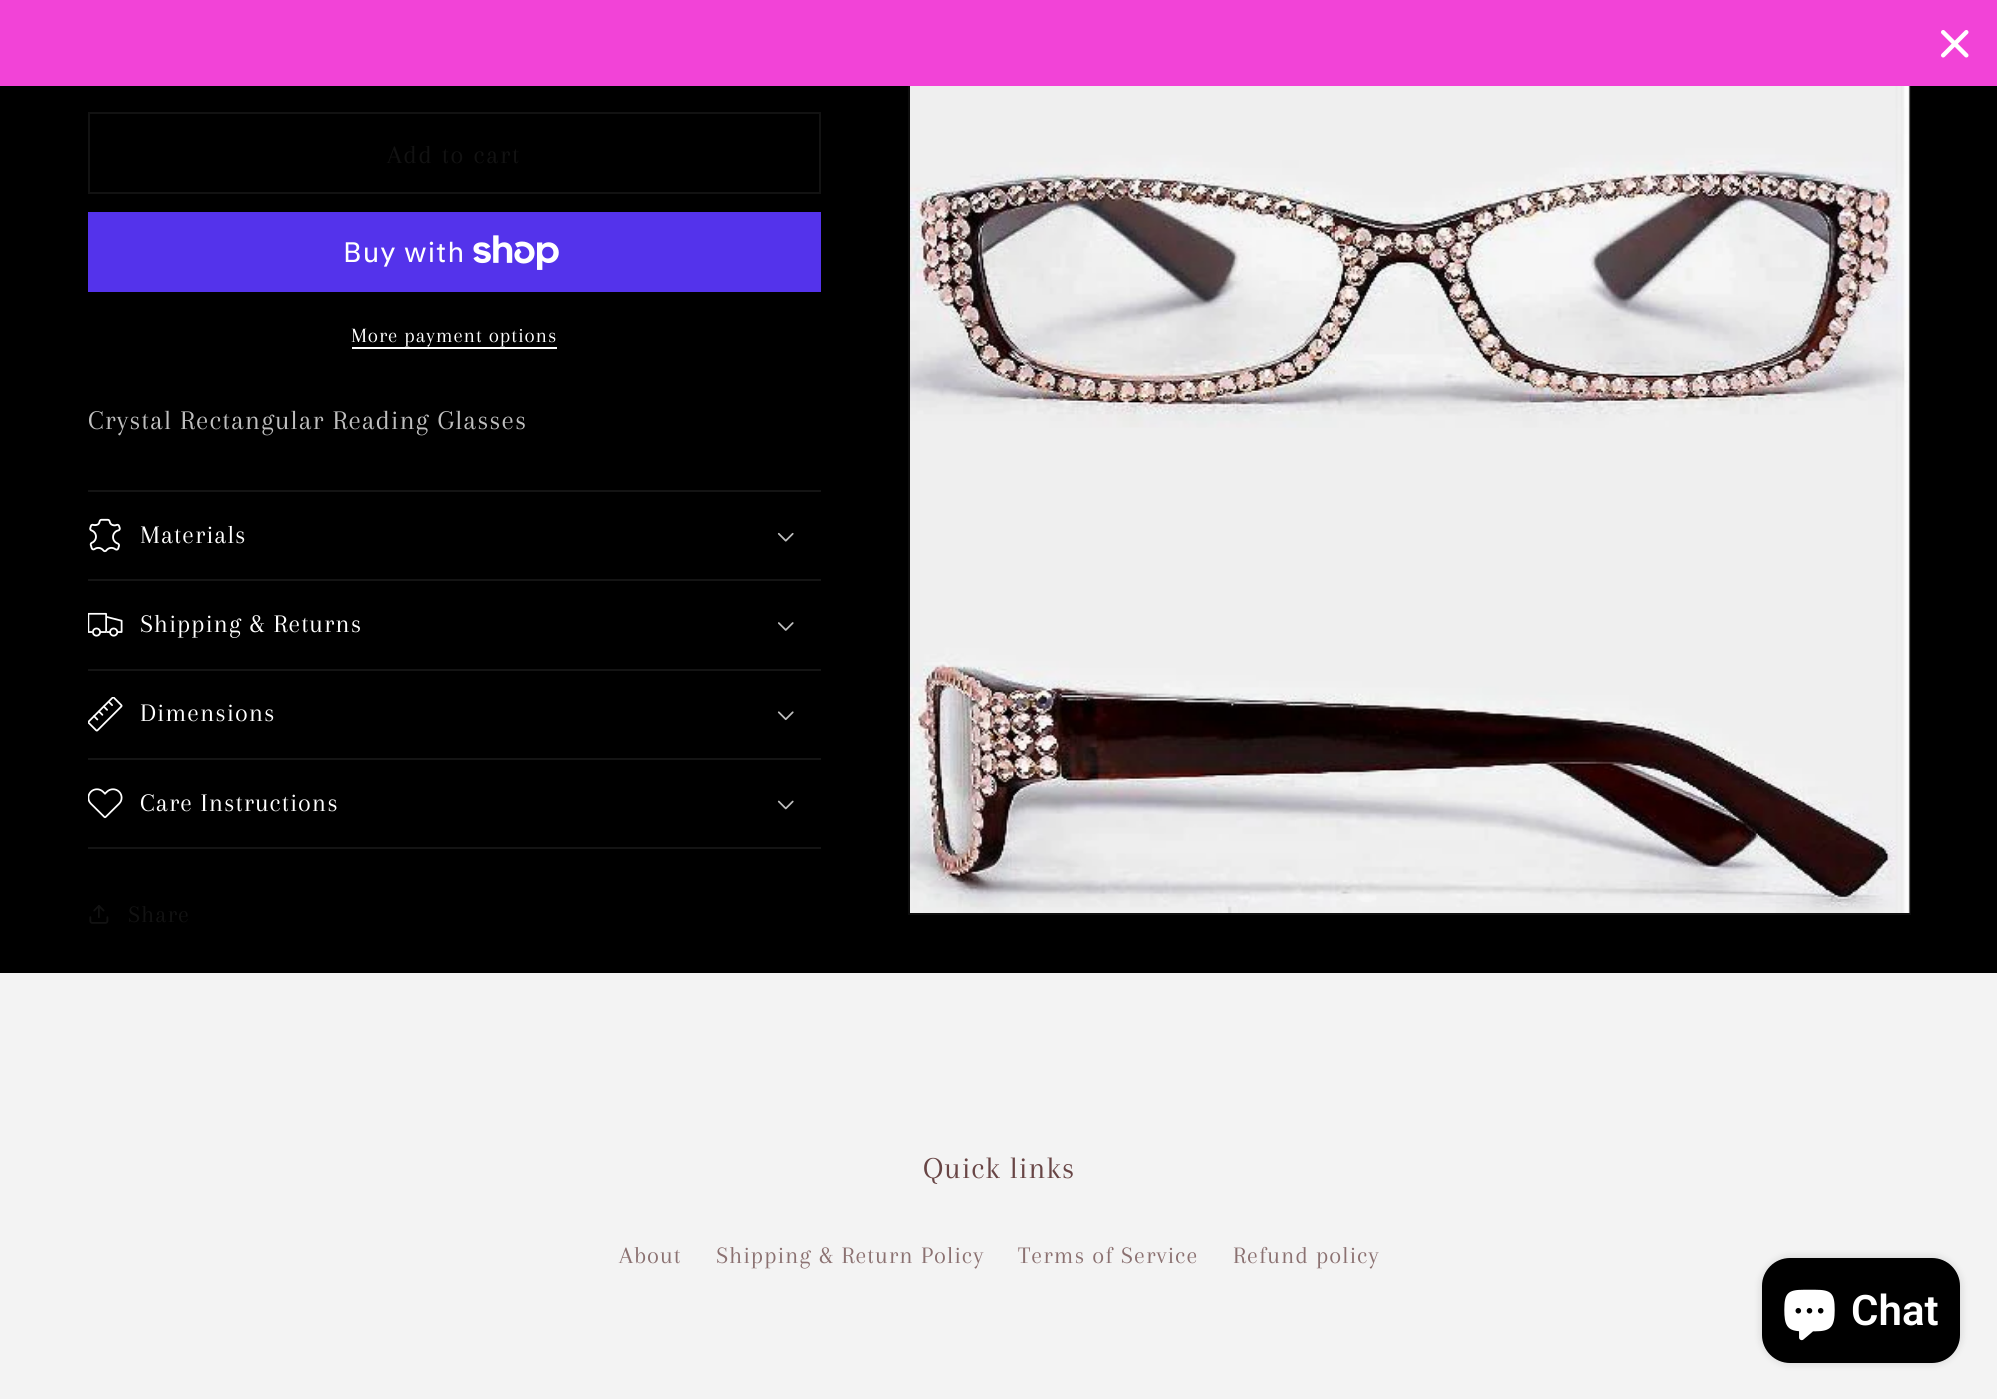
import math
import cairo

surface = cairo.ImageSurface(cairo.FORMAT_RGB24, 1997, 1399)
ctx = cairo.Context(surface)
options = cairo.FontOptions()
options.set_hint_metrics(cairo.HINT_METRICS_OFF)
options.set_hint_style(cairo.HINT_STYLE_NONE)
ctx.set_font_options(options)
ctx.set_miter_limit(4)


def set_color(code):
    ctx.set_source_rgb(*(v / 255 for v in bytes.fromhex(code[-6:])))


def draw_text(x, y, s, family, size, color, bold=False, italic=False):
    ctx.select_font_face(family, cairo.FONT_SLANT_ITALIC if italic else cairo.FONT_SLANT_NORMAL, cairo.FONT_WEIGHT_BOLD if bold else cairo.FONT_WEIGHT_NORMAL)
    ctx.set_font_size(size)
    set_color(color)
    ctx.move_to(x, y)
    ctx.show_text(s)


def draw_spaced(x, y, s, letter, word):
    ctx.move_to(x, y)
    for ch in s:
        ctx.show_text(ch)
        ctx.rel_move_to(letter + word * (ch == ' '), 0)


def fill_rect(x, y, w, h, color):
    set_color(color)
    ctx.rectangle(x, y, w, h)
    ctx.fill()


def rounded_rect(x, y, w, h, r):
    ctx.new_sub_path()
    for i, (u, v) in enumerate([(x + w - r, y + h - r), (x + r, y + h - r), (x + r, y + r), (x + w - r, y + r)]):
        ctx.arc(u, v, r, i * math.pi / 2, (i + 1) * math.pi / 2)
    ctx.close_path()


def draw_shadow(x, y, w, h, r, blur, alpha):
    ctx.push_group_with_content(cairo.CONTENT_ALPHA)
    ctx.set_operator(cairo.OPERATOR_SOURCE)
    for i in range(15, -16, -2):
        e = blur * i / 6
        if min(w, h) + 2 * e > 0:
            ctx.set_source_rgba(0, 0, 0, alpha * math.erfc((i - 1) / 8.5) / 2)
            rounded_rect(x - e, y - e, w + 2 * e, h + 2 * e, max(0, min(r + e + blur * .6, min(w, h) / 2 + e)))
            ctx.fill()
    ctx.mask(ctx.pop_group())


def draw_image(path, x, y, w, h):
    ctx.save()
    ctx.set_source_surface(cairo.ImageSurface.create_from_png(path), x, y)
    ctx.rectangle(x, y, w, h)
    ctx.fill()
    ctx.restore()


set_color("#000000")
ctx.paint()
ctx.rectangle(909, 54, 1001, 860)
set_color("#0d0d0d")
ctx.stroke()
fill_rect(0, 0, 1997, 86, "#f243d7")
draw_image("assets/img1.png", 1941, 30, 28, 28)
ctx.rectangle(89, 113, 731, 80)
set_color("#121212")
ctx.stroke()
ctx.select_font_face("Arapey")
ctx.set_font_size(26.25)
draw_spaced(387, 163, "Add to cart", 1.75, 0)
fill_rect(88, 212, 733, 80, "#5433eb")
ctx.select_font_face("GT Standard")
ctx.set_font_size(28)
set_color("#ffffff")
draw_spaced(343, 262, "Buy with", 1.05, 0)
draw_image("assets/img2.png", 473, 235, 86, 35)
ctx.select_font_face("Arapey")
ctx.set_font_size(21)
draw_spaced(351, 342, "More payment options", 0.9, 0)
fill_rect(352, 347, 205, 2, "#ffffff")
ctx.set_font_size(28)
set_color("#bfbfbf")
draw_spaced(88, 429, "Crystal Rectangular Reading Glasses", 1.05, 0)
fill_rect(88, 490, 733, 2, "#141414")
fill_rect(88, 579, 733, 2, "#141414")
draw_image("assets/img3.png", 89, 518, 32, 35)
ctx.set_font_size(26.25)
set_color("#ffffff")
draw_spaced(140, 543, "Materials", 1.05, 0)
draw_image("assets/img4.png", 777, 532, 17, 10)
fill_rect(88, 669, 733, 2, "#141414")
draw_image("assets/img5.png", 88, 612, 35, 25)
set_color("#ffffff")
draw_spaced(140, 632, "Shipping & Returns", 1.05, 0)
draw_image("assets/img6.png", 778, 622, 16, 9)
fill_rect(88, 758, 733, 2, "#141414")
draw_image("assets/img7.png", 88, 697, 35, 35)
set_color("#ffffff")
draw_spaced(140, 721, "Dimensions", 1.05, 0)
draw_image("assets/img8.png", 777, 711, 17, 10)
fill_rect(88, 847, 733, 2, "#141414")
draw_image("assets/img9.png", 88, 788, 35, 31)
set_color("#ffffff")
draw_spaced(140, 811, "Care Instructions", 1.05, 0)
draw_image("assets/img10.png", 777, 800, 17, 10)
draw_image("assets/img11.png", 89, 905, 20, 19)
ctx.set_font_size(24.5)
set_color("#121212")
draw_spaced(128, 922, "Share", 1.05, 0)
draw_image("assets/img12.png", 910, 86, 1000, 827)
fill_rect(0, 973, 1997, 426, "#f3f3f3")
ctx.set_font_size(31.5)
set_color("#684545")
draw_spaced(923, 1178, "Quick links", 1.05, 0)
ctx.set_font_size(24.5)
set_color("#8b7171")
draw_spaced(619, 1263, "About", 1.05, 0)
draw_spaced(716, 1263, "Shipping & Return Policy", 1.05, 0)
draw_spaced(1018, 1263, "Terms of Service", 1.05, 0)
draw_spaced(1233, 1263, "Refund policy", 1.05, 0)
set_color("#000000")
draw_shadow(1762, 1258, 198, 105, 28, 4.5, 0.15)
set_color("#000000")
rounded_rect(1762, 1258, 198, 105, 28)
ctx.fill()
draw_image("assets/img13.png", 1784, 1289, 51, 52)
draw_text(1851, 1325, "Chat", "Roboto SemiBold", 42, "#ffffff")
surface.write_to_png("output.png")
